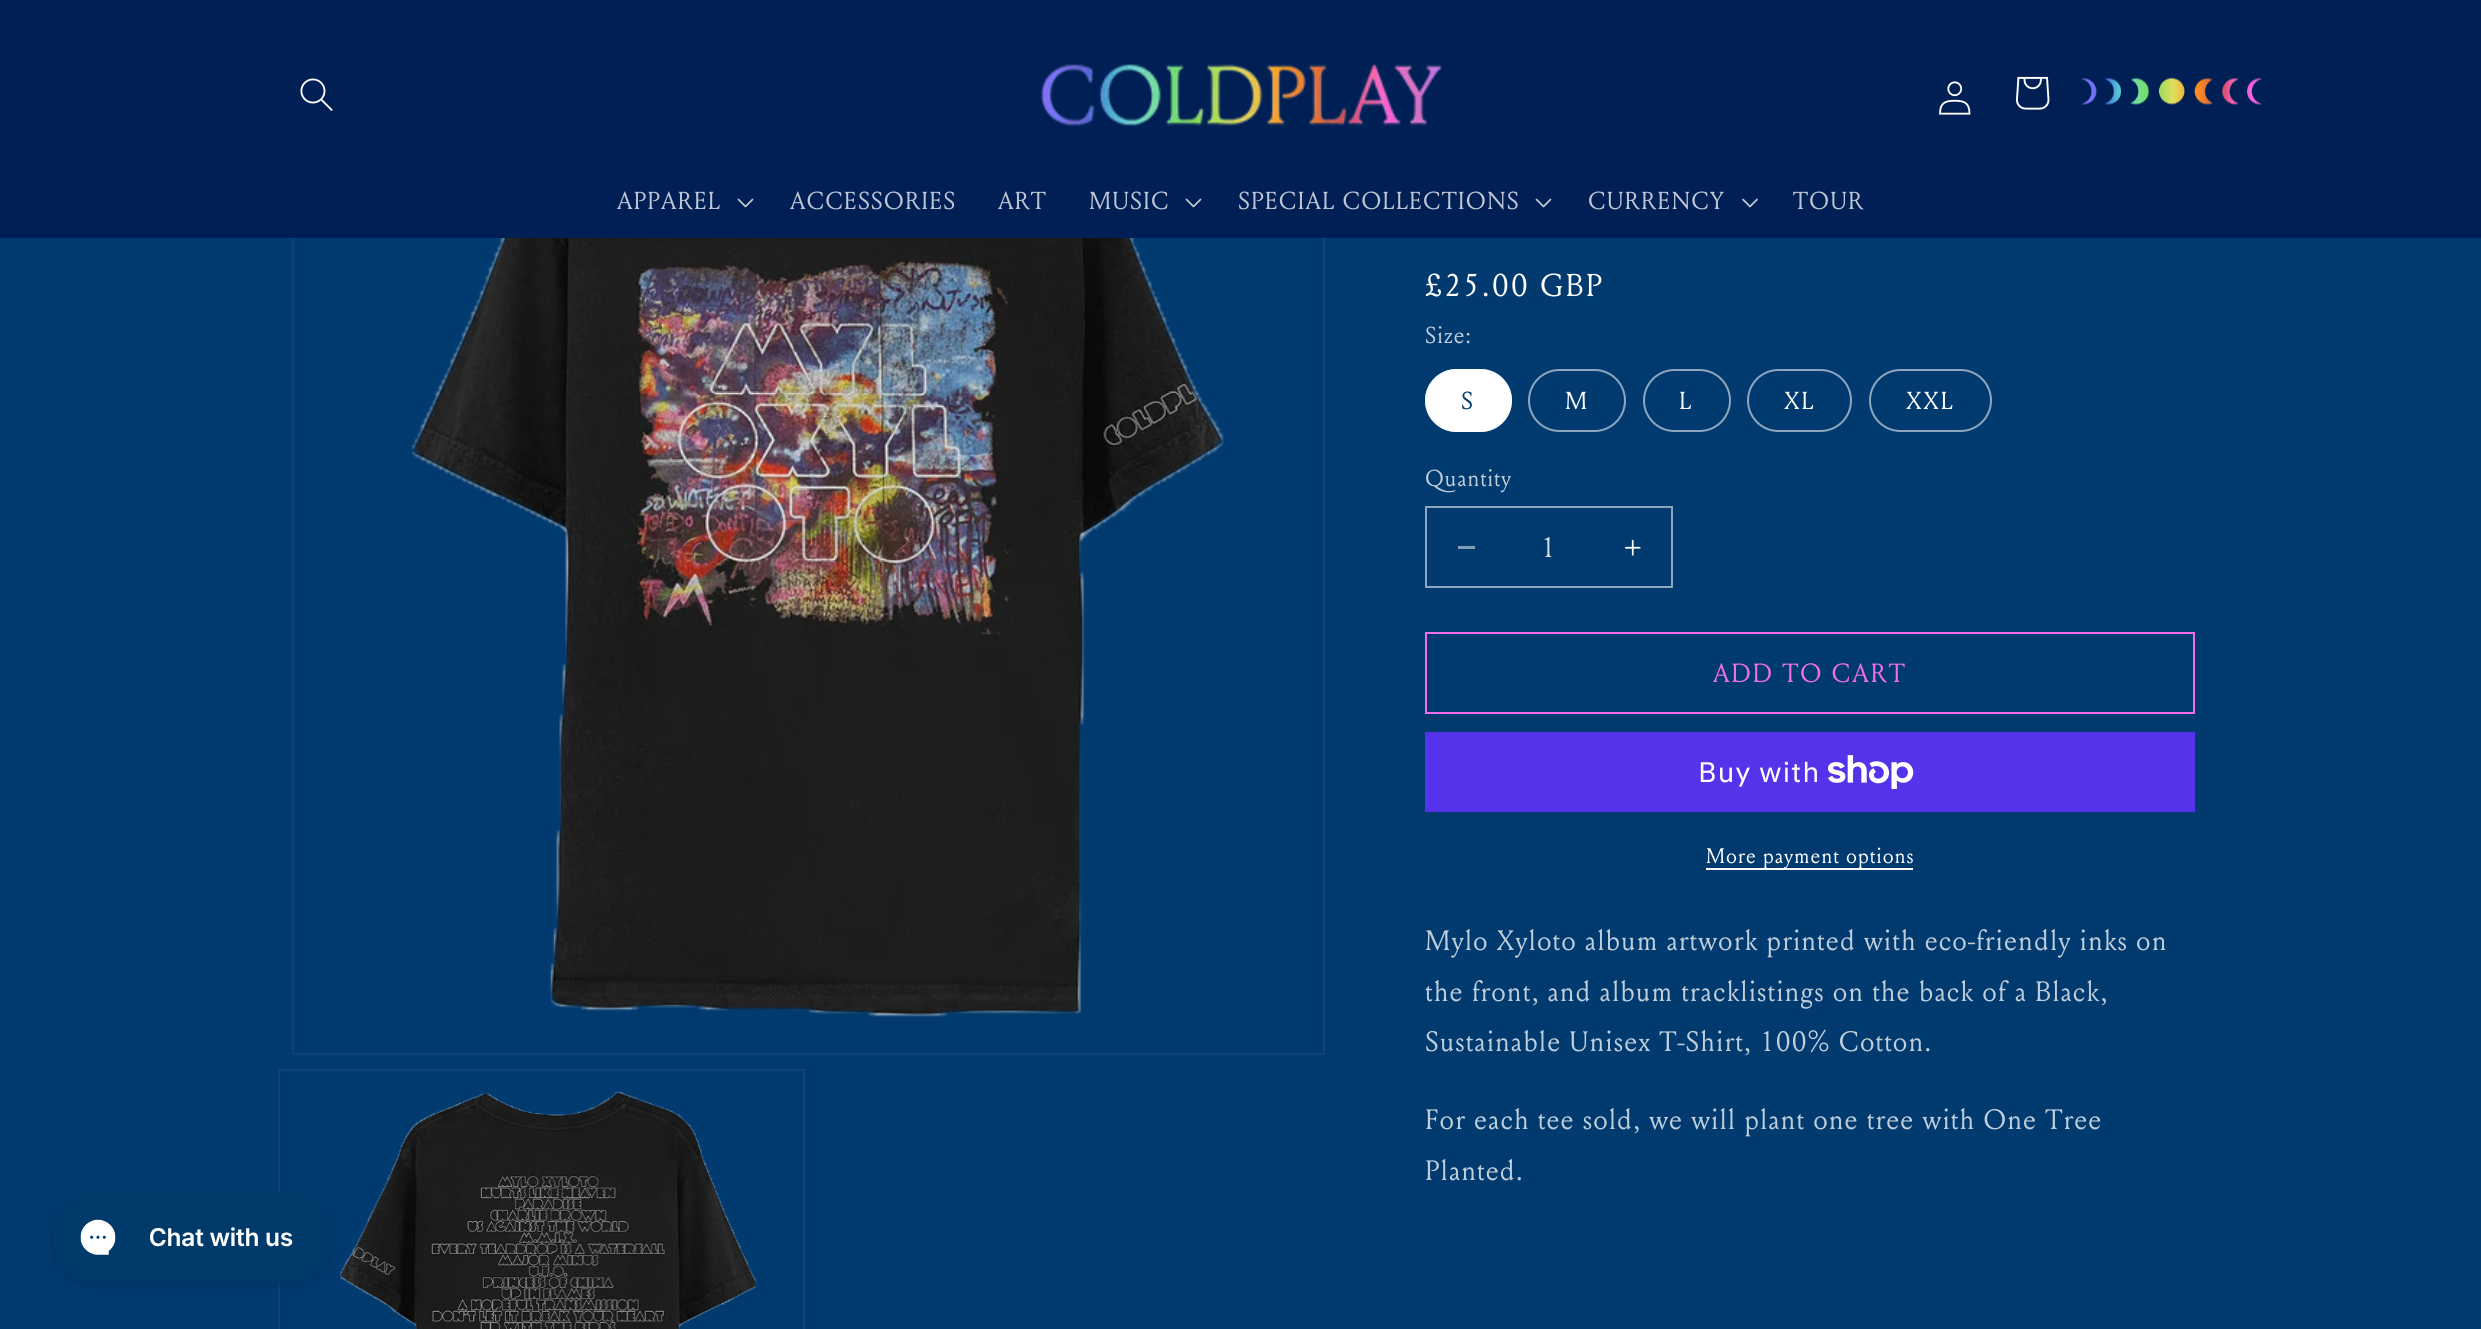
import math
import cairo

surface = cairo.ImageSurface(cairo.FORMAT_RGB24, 2481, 1329)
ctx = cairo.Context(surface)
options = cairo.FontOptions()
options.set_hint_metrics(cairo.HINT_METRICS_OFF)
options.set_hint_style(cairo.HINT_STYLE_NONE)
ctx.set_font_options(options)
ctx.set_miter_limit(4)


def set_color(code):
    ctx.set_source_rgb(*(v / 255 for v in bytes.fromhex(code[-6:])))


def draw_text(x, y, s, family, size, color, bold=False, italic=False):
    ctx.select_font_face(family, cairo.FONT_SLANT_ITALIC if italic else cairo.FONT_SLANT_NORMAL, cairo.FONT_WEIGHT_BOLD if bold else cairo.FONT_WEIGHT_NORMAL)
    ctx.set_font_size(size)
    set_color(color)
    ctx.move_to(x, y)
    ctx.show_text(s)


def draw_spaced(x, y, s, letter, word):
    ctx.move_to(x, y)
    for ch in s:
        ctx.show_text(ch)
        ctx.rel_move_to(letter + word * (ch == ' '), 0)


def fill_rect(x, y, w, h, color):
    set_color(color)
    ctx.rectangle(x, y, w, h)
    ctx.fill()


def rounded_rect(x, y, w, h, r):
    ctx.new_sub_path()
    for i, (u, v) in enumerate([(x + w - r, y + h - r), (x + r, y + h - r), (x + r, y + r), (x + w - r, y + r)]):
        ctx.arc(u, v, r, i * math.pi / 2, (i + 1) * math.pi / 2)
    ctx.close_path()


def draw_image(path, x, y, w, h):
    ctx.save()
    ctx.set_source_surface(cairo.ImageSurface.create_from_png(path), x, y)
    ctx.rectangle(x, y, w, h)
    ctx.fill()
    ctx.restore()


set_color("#003a6f")
ctx.paint()
ctx.rectangle(293, 24, 1031, 1030)
set_color("#0d4476")
ctx.stroke()
fill_rect(0, 0, 2481, 238, "#002055")
draw_image("assets/img1.png", 300, 78, 33, 33)
draw_image("assets/img2.png", 1041, 64, 402, 63)
draw_image("assets/img3.png", 1939, 81, 32, 34)
draw_image("assets/img4.png", 2016, 76, 34, 34)
draw_image("assets/img5.png", 2081, 77, 181, 28)
ctx.select_font_face("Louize")
ctx.set_font_size(24.5)
set_color("#bfc7d5")
draw_spaced(617, 209, "APPAREL", 1.05, 0)
draw_image("assets/img6.png", 737, 198, 17, 10)
draw_spaced(790, 209, "ACCESSORIES", 1.05, 0)
draw_spaced(998, 209, "ART", 1.05, 0)
draw_spaced(1089, 209, "MUSIC", 1.05, 0)
draw_image("assets/img6.png", 1185, 198, 17, 10)
draw_spaced(1238, 209, "SPECIAL COLLECTIONS", 1.05, 0)
draw_image("assets/img6.png", 1535, 198, 17, 10)
draw_spaced(1588, 209, "CURRENCY", 1.05, 0)
draw_image("assets/img7.png", 1742, 198, 16, 10)
draw_spaced(1793, 209, "TOUR", 1.05, 0)
draw_image("assets/img8.png", 411, 238, 813, 779)
ctx.rectangle(279, 1070, 525, 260)
set_color("#0d4476")
ctx.stroke()
draw_image("assets/img9.png", 340, 1091, 417, 238)
ctx.set_font_size(31.5)
set_color("#ffffff")
draw_spaced(1425, 296, "£25.00 GBP", 2.25, 0)
ctx.set_font_size(23)
set_color("#bfcedb")
draw_spaced(1425, 343, "Size:", 0.75, 0)
set_color("#ffffff")
rounded_rect(1425, 369, 87, 63, 31.5)
ctx.fill()
rounded_rect(1426, 370, 85, 61, 30.5)
ctx.set_source_rgba(1, 1, 1, 0.55)
ctx.stroke()
ctx.set_font_size(24.5)
set_color("#003a6f")
draw_spaced(1461, 409, "S", 1.75, 0)
rounded_rect(1529, 370, 96, 61, 30.5)
set_color("#8ca6be")
ctx.stroke()
set_color("#ffffff")
draw_spaced(1565, 409, "M", 1.75, 0)
rounded_rect(1644, 370, 86, 61, 30.5)
set_color("#8ca6be")
ctx.stroke()
set_color("#ffffff")
draw_spaced(1679, 409, "L", 1.75, 0)
rounded_rect(1748, 370, 103, 61, 30.5)
set_color("#8ca6be")
ctx.stroke()
set_color("#ffffff")
draw_spaced(1784, 409, "XL", 1.75, 0)
rounded_rect(1870, 370, 121, 61, 30.5)
set_color("#8ca6be")
ctx.stroke()
set_color("#ffffff")
draw_spaced(1906, 409, "XXL", 1.75, 0)
ctx.set_font_size(23)
set_color("#bfcedb")
draw_spaced(1425, 486, "Quantity", 0.75, 0)
fill_rect(1458, 546, 17, 3, "#809db7")
draw_image("assets/img10.png", 1624, 539, 17, 17)
ctx.rectangle(1426, 507, 246, 80)
set_color("#8ca6be")
ctx.stroke()
draw_text(1541, 557, "1", "Louize", 28, "#d9e1e9")
ctx.rectangle(1426, 633, 768, 80)
set_color("#f06ee9")
ctx.stroke()
ctx.set_font_size(26.25)
draw_spaced(1713, 682, "ADD TO CART", 1.75, 0)
fill_rect(1425, 732, 770, 80, "#5433eb")
ctx.select_font_face("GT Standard")
ctx.set_font_size(28)
set_color("#ffffff")
draw_spaced(1698, 782, "Buy with", 1.05, 0)
draw_image("assets/img11.png", 1828, 755, 86, 34)
fill_rect(1706, 868, 207, 2, "#ffffff")
ctx.select_font_face("Louize")
ctx.set_font_size(21)
draw_spaced(1706, 863, "More payment options", 0.9, 0)
ctx.set_font_size(28)
set_color("#bfcedb")
draw_spaced(1425, 950, "Mylo Xyloto album artwork printed with eco-friendly inks on", 1.05, 0)
draw_spaced(1425, 1001, "the front, and album tracklistings on the back of a Black,", 1.05, 0)
draw_spaced(1425, 1051, "Sustainable Unisex T-Shirt, 100% Cotton.", 1.05, 0)
draw_spaced(1425, 1129, "For each tee sold, we will plant one tree with One Tree", 1.05, 0)
draw_spaced(1425, 1180, "Planted.", 1.05, 0)
draw_image("assets/img12.png", 51, 1192, 284, 97)
surface.write_to_png("output.png")
